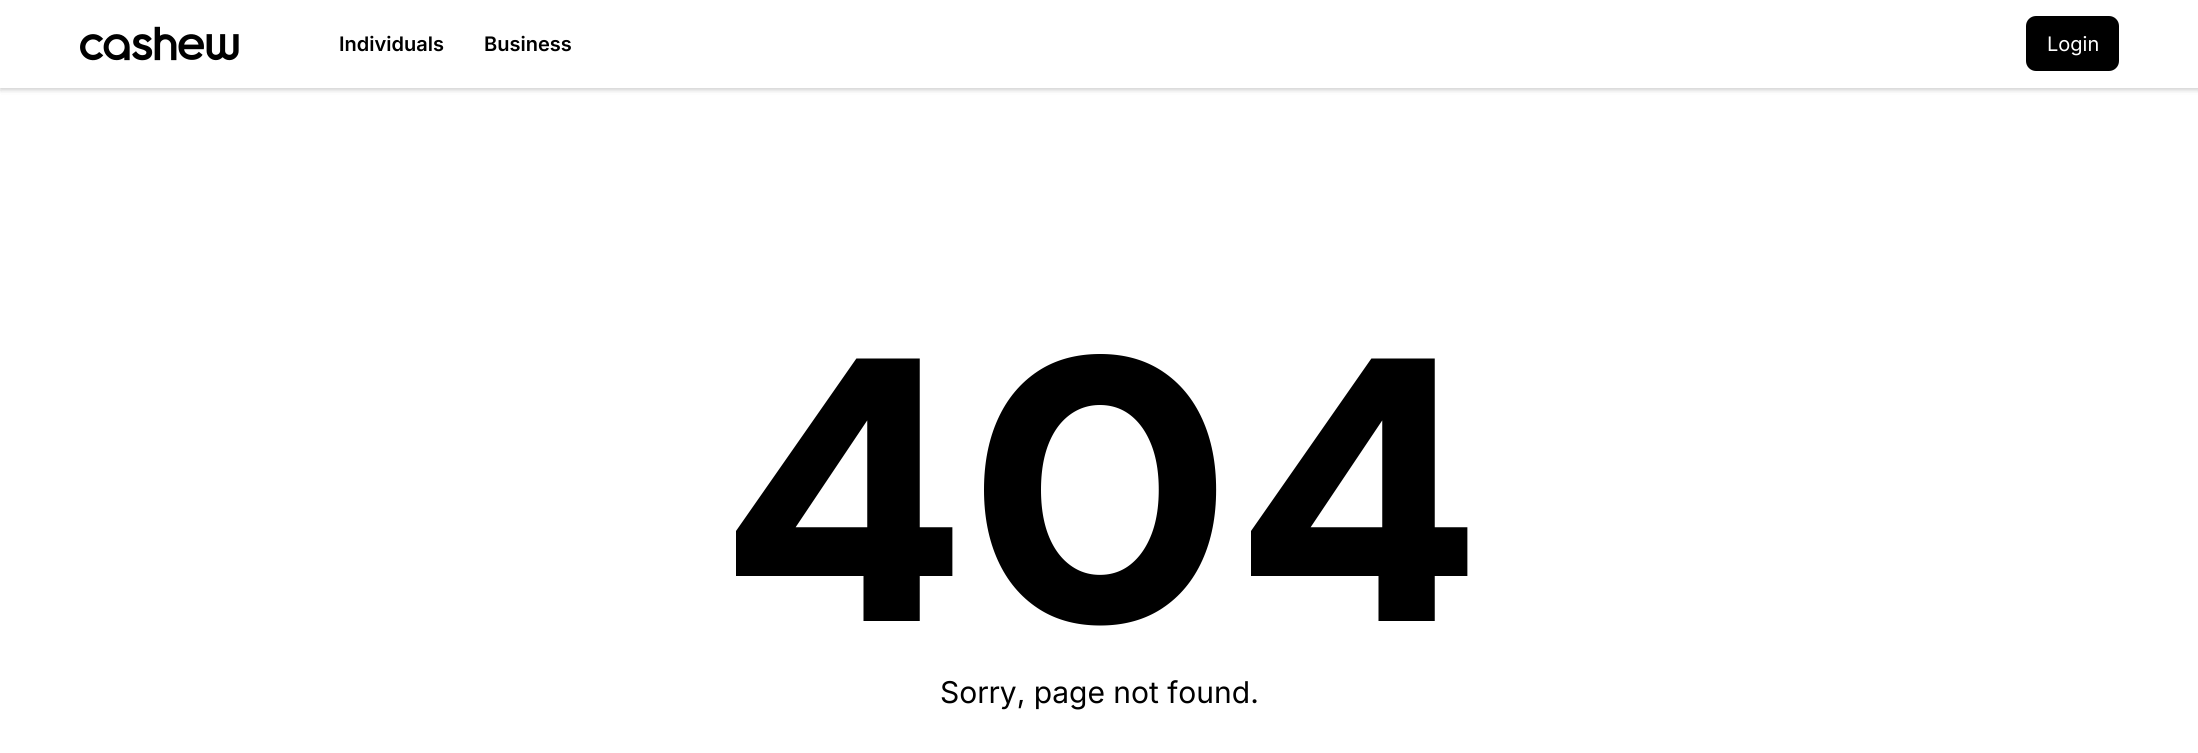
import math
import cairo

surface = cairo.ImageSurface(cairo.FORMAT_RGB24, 2198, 753)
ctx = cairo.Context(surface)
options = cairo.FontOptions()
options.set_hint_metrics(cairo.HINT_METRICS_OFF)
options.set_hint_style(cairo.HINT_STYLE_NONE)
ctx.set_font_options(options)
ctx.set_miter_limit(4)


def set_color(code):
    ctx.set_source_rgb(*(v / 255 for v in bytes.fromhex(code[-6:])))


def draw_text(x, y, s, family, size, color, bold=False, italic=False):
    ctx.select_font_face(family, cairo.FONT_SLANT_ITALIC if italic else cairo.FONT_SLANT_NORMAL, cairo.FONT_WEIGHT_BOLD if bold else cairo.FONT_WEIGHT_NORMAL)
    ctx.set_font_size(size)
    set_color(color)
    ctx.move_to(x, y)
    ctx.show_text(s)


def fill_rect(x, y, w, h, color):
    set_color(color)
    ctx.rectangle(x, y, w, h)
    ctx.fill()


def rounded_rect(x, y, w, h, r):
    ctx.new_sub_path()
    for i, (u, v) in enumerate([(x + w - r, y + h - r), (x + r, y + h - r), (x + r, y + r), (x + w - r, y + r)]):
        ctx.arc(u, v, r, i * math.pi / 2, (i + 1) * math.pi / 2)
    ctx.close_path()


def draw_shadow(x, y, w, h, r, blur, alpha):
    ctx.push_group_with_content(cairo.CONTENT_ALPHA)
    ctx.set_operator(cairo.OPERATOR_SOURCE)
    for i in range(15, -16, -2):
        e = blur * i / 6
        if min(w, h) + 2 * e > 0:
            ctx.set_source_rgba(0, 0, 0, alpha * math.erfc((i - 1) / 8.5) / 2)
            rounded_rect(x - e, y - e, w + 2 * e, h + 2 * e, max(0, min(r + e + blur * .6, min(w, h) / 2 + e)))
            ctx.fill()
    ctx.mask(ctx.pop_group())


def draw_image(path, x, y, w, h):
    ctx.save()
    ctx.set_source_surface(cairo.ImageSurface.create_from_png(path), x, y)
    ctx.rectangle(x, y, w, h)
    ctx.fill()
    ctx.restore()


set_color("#ffffff")
ctx.paint()
set_color("#000000")
draw_shadow(0, 3, 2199, 87, 0, 2.5, 0.1)
fill_rect(0, 0, 2198, 88, "#ffffff")
ctx.save()
ctx.set_fill_rule(cairo.FILL_RULE_EVEN_ODD)
ctx.new_path()
ctx.move_to(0, 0)
ctx.line_to(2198, 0)
ctx.line_to(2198, 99)
ctx.line_to(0, 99)
ctx.close_path()
ctx.move_to(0, 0)
ctx.line_to(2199, 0)
ctx.line_to(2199, 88)
ctx.line_to(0, 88)
ctx.close_path()
ctx.clip()
set_color("#000000")
draw_shadow(0, 3, 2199, 87, 0, 2.5, 0.1)
ctx.restore()
draw_image("assets/img1.png", 80, 26, 159, 35)
draw_text(339, 51, "Individuals", "Inter SemiBold", 20, "#000000")
draw_text(484, 51, "Business", "Inter SemiBold", 20, "#000000")
rounded_rect(2026, 16, 93, 55, 10)
ctx.fill()
draw_text(2047, 51, "Login", "Inter", 20, "#ffffff")
draw_text(718, 621, "404", "DM Sans Black", 375, "#000000")
draw_text(940, 703, "Sorry, page not found.", "Inter", 30, "#000000")
surface.write_to_png("output.png")
